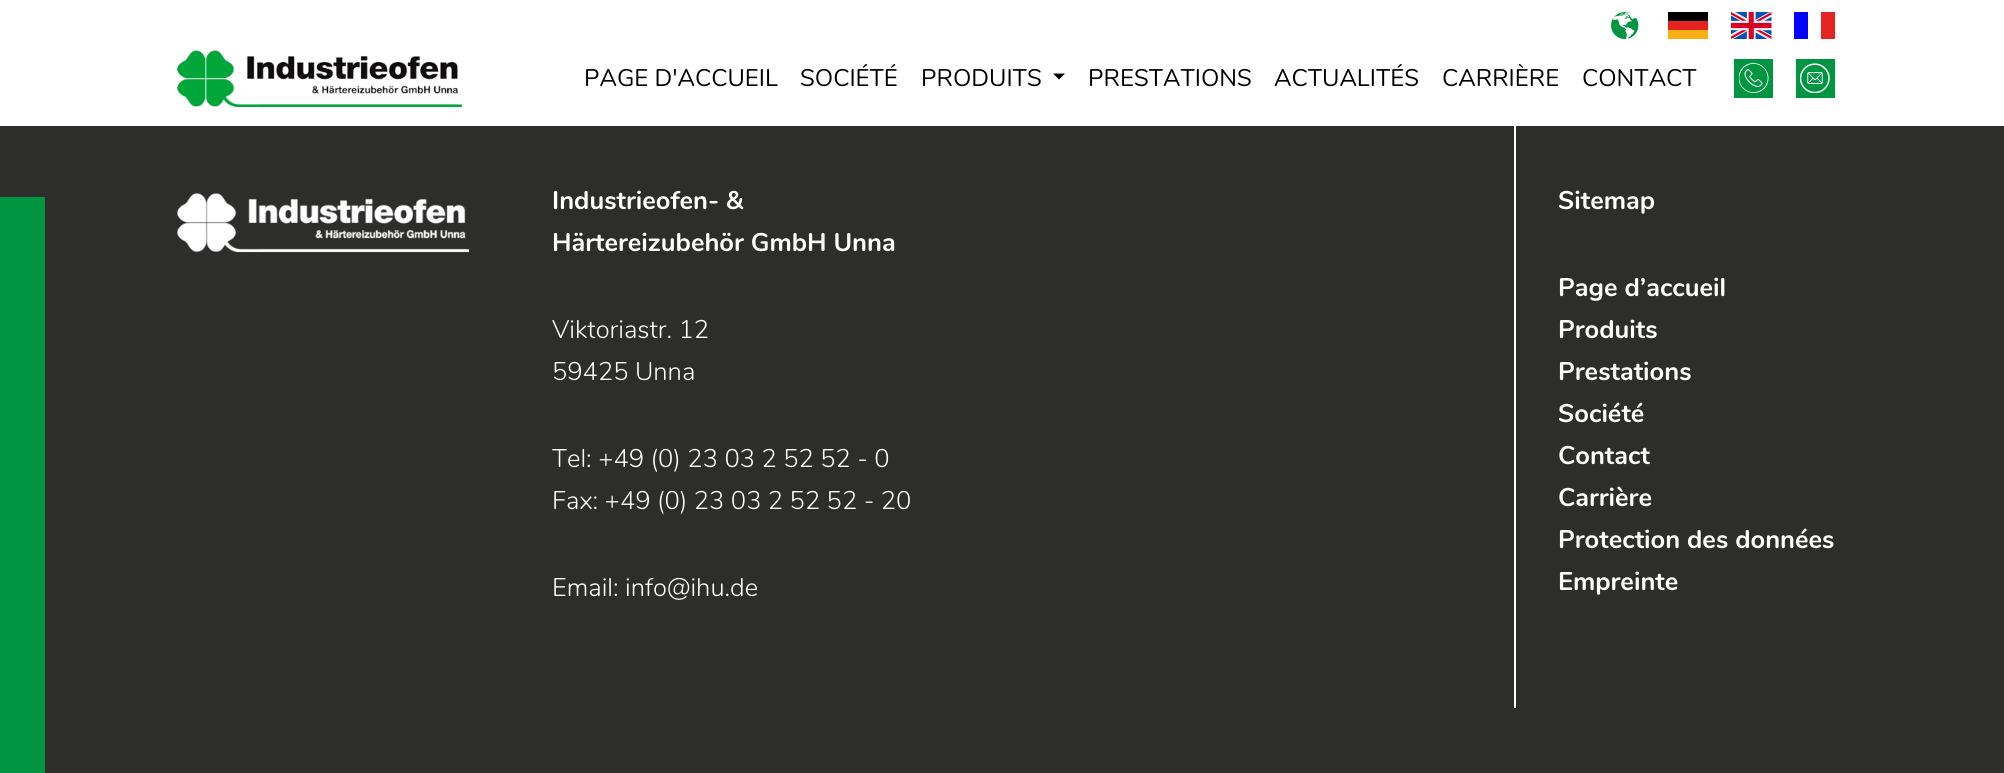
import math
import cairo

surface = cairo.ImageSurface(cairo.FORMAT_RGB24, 2004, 773)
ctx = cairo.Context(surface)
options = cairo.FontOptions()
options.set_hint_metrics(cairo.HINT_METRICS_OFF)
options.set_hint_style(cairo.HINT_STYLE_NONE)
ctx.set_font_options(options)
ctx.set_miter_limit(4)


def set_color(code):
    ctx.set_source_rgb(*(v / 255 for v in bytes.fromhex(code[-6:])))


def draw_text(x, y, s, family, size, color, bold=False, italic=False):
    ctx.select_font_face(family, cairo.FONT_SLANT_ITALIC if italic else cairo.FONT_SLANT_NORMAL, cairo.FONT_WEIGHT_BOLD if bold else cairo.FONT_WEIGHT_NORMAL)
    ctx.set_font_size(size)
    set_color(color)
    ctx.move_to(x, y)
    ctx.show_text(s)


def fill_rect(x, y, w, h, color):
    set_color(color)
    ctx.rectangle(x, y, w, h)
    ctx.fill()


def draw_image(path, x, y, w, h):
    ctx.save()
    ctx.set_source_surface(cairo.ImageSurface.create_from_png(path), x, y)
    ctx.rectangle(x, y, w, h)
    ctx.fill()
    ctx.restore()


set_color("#2d2d2c")
ctx.paint()
fill_rect(0, 0, 2004, 126, "#ffffff")
draw_image("assets/img1.png", 177, 50, 285, 57)
draw_text(584, 86, "PAGE D'ACCUEIL", "Nunito", 24, "#000000")
draw_text(800, 86, "SOCIÉTÉ", "Nunito", 24, "#000000")
draw_text(921, 86, "PRODUITS", "Nunito", 24, "#000000")
ctx.new_path()
ctx.move_to(1053, 73.5)
ctx.line_to(1065, 73.5)
ctx.line_to(1059, 79.5)
ctx.close_path()
ctx.fill()
draw_text(1088, 86, "PRESTATIONS", "Nunito", 24, "#000000")
draw_text(1274, 86, "ACTUALITÉS", "Nunito", 24, "#000000")
draw_text(1442, 86, "CARRIÈRE", "Nunito", 24, "#000000")
draw_text(1582, 86, "CONTACT", "Nunito", 24, "#000000")
draw_image("assets/img2.png", 1611, 12, 28, 27)
fill_rect(1668, 12, 40, 9, "#000000")
fill_rect(1668, 21, 40, 9, "#e52321")
fill_rect(1668, 30, 40, 9, "#f9af15")
draw_image("assets/img3.png", 1731, 12, 41, 27)
fill_rect(1794, 12, 14, 27, "#0002ff")
fill_rect(1821, 12, 14, 27, "#e52321")
fill_rect(1734, 59, 39, 39, "#009641")
draw_image("assets/img4.png", 1739, 63, 30, 30)
fill_rect(1796, 59, 39, 39, "#009641")
draw_image("assets/img5.png", 1800, 63, 30, 30)
fill_rect(0, 197, 45, 576, "#009641")
draw_image("assets/img6.png", 177, 193, 293, 60)
draw_text(552, 209, "Industrieofen- &", "Nunito", 25.5, "#ffffff", bold=True)
draw_text(552, 251, "Härtereizubehör GmbH Unna", "Nunito", 25.5, "#ffffff", bold=True)
draw_text(552, 338, "Viktoriastr. 12", "Nunito Light", 25.5, "#ffffff")
draw_text(552, 380, "59425 Unna", "Nunito Light", 25.5, "#ffffff")
draw_text(552, 467, "Tel: +49 (0) 23 03 2 52 52 - 0", "Nunito Light", 25.5, "#ffffff")
draw_text(552, 509, "Fax: +49 (0) 23 03 2 52 52 - 20", "Nunito Light", 25.5, "#ffffff")
draw_text(552, 596, "Email: info@ihu.de", "Nunito Light", 25.5, "#ffffff")
fill_rect(1514, 126, 2, 582, "#ffffff")
draw_text(1558, 209, "Sitemap", "Nunito", 25.5, "#ffffff", bold=True)
draw_text(1558, 296, "Page d’accueil", "Nunito", 25.5, "#ffffff", bold=True)
draw_text(1558, 338, "Produits", "Nunito", 25.5, "#ffffff", bold=True)
draw_text(1558, 380, "Prestations", "Nunito", 25.5, "#ffffff", bold=True)
draw_text(1558, 422, "Société", "Nunito", 25.5, "#ffffff", bold=True)
draw_text(1558, 464, "Contact", "Nunito", 25.5, "#ffffff", bold=True)
draw_text(1558, 506, "Carrière", "Nunito", 25.5, "#ffffff", bold=True)
draw_text(1558, 548, "Protection des données", "Nunito", 25.5, "#ffffff", bold=True)
draw_text(1558, 590, "Empreinte", "Nunito", 25.5, "#ffffff", bold=True)
surface.write_to_png("output.png")
